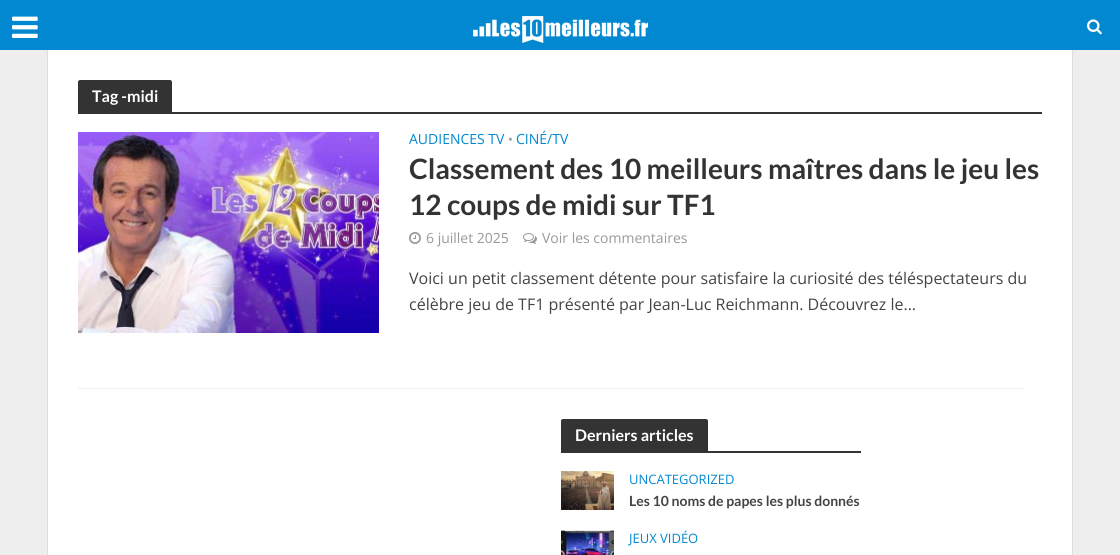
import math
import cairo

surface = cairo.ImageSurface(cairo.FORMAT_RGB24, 1120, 555)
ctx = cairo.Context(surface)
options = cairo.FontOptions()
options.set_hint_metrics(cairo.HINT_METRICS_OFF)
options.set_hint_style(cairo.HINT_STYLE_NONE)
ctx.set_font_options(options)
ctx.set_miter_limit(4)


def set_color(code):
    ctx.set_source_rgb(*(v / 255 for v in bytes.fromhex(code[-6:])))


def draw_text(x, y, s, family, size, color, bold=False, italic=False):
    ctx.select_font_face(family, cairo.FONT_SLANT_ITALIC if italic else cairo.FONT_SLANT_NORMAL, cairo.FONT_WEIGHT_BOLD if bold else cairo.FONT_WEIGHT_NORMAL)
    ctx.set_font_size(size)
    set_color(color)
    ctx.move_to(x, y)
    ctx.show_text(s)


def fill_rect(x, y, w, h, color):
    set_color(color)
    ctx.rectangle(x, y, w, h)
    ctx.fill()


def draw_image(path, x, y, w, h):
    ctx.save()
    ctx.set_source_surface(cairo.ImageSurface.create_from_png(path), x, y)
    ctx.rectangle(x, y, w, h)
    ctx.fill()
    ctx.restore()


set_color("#eeeeee")
ctx.paint()
ctx.rectangle(47.5, 49.5, 1025, 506)
set_color("#dddddd")
ctx.set_line_width(1)
ctx.stroke()
fill_rect(0, 0, 1120, 50, "#0288d1")
draw_image("assets/img1.png", 12, 16, 26, 22)
draw_image("assets/img2.png", 473, 16, 175, 27)
draw_image("assets/img3.png", 1087, 19, 15, 16)
fill_rect(48, 50, 1024, 505, "#ffffff")
set_color("#333333")
ctx.new_path()
ctx.move_to(80, 80)
ctx.line_to(170, 80)
ctx.curve_to(171, 80, 172, 81, 172, 82)
ctx.line_to(172, 112)
ctx.line_to(78, 112)
ctx.line_to(78, 82)
ctx.curve_to(78, 81, 79, 80, 80, 80)
ctx.close_path()
ctx.fill()
draw_text(92, 102, "Tag -midi", "Lato", 16, "#ffffff", bold=True)
fill_rect(78, 112, 964, 2, "#333333")
draw_image("assets/img4.png", 78, 132, 301, 201)
draw_text(409, 144, "AUDIENCES TV", "Open Sans", 14, "#0288d1")
draw_text(508, 144, "•", "Open Sans", 13, "#999999")
draw_text(516, 144, "CINÉ/TV", "Open Sans", 14, "#0288d1")
draw_text(409, 179, "Classement des 10 meilleurs maîtres dans le jeu les", "Lato", 28, "#333333", bold=True)
draw_text(409, 215, "12 coups de midi sur TF1", "Lato", 28, "#333333", bold=True)
draw_image("assets/img5.png", 409, 232, 12, 12)
draw_text(426, 243, "6 juillet 2025", "Open Sans", 14, "#999999")
draw_image("assets/img6.png", 523, 233, 14, 11)
draw_text(542, 243, "Voir les commentaires", "Open Sans", 14, "#999999")
draw_text(409, 284, "Voici un petit classement détente pour satisfaire la curiosité des téléspectateurs du", "Open Sans", 16, "#444444")
draw_text(409, 310, "célèbre jeu de TF1 présenté par Jean-Luc Reichmann. Découvrez le...", "Open Sans", 16, "#444444")
fill_rect(78, 388, 947, 1, "#eeeeee")
set_color("#333333")
ctx.new_path()
ctx.move_to(563, 419)
ctx.line_to(706, 419)
ctx.curve_to(707, 419, 708, 420, 708, 421)
ctx.line_to(708, 451)
ctx.line_to(561, 451)
ctx.line_to(561, 421)
ctx.curve_to(561, 420, 562, 419, 563, 419)
ctx.close_path()
ctx.fill()
draw_text(575, 441, "Derniers articles", "Lato", 16, "#ffffff", bold=True)
fill_rect(561, 451, 300, 2, "#333333")
draw_image("assets/img7.png", 561, 471, 53, 39)
draw_text(629, 484, "UNCATEGORIZED", "Open Sans", 13, "#0288d1")
draw_text(629, 506, "Les 10 noms de papes les plus donnés", "Lato", 14, "#444444", bold=True)
draw_image("assets/img8.png", 561, 530, 53, 25)
draw_text(629, 543, "JEUX VIDÉO", "Open Sans", 13, "#0288d1")
surface.write_to_png("output.png")
